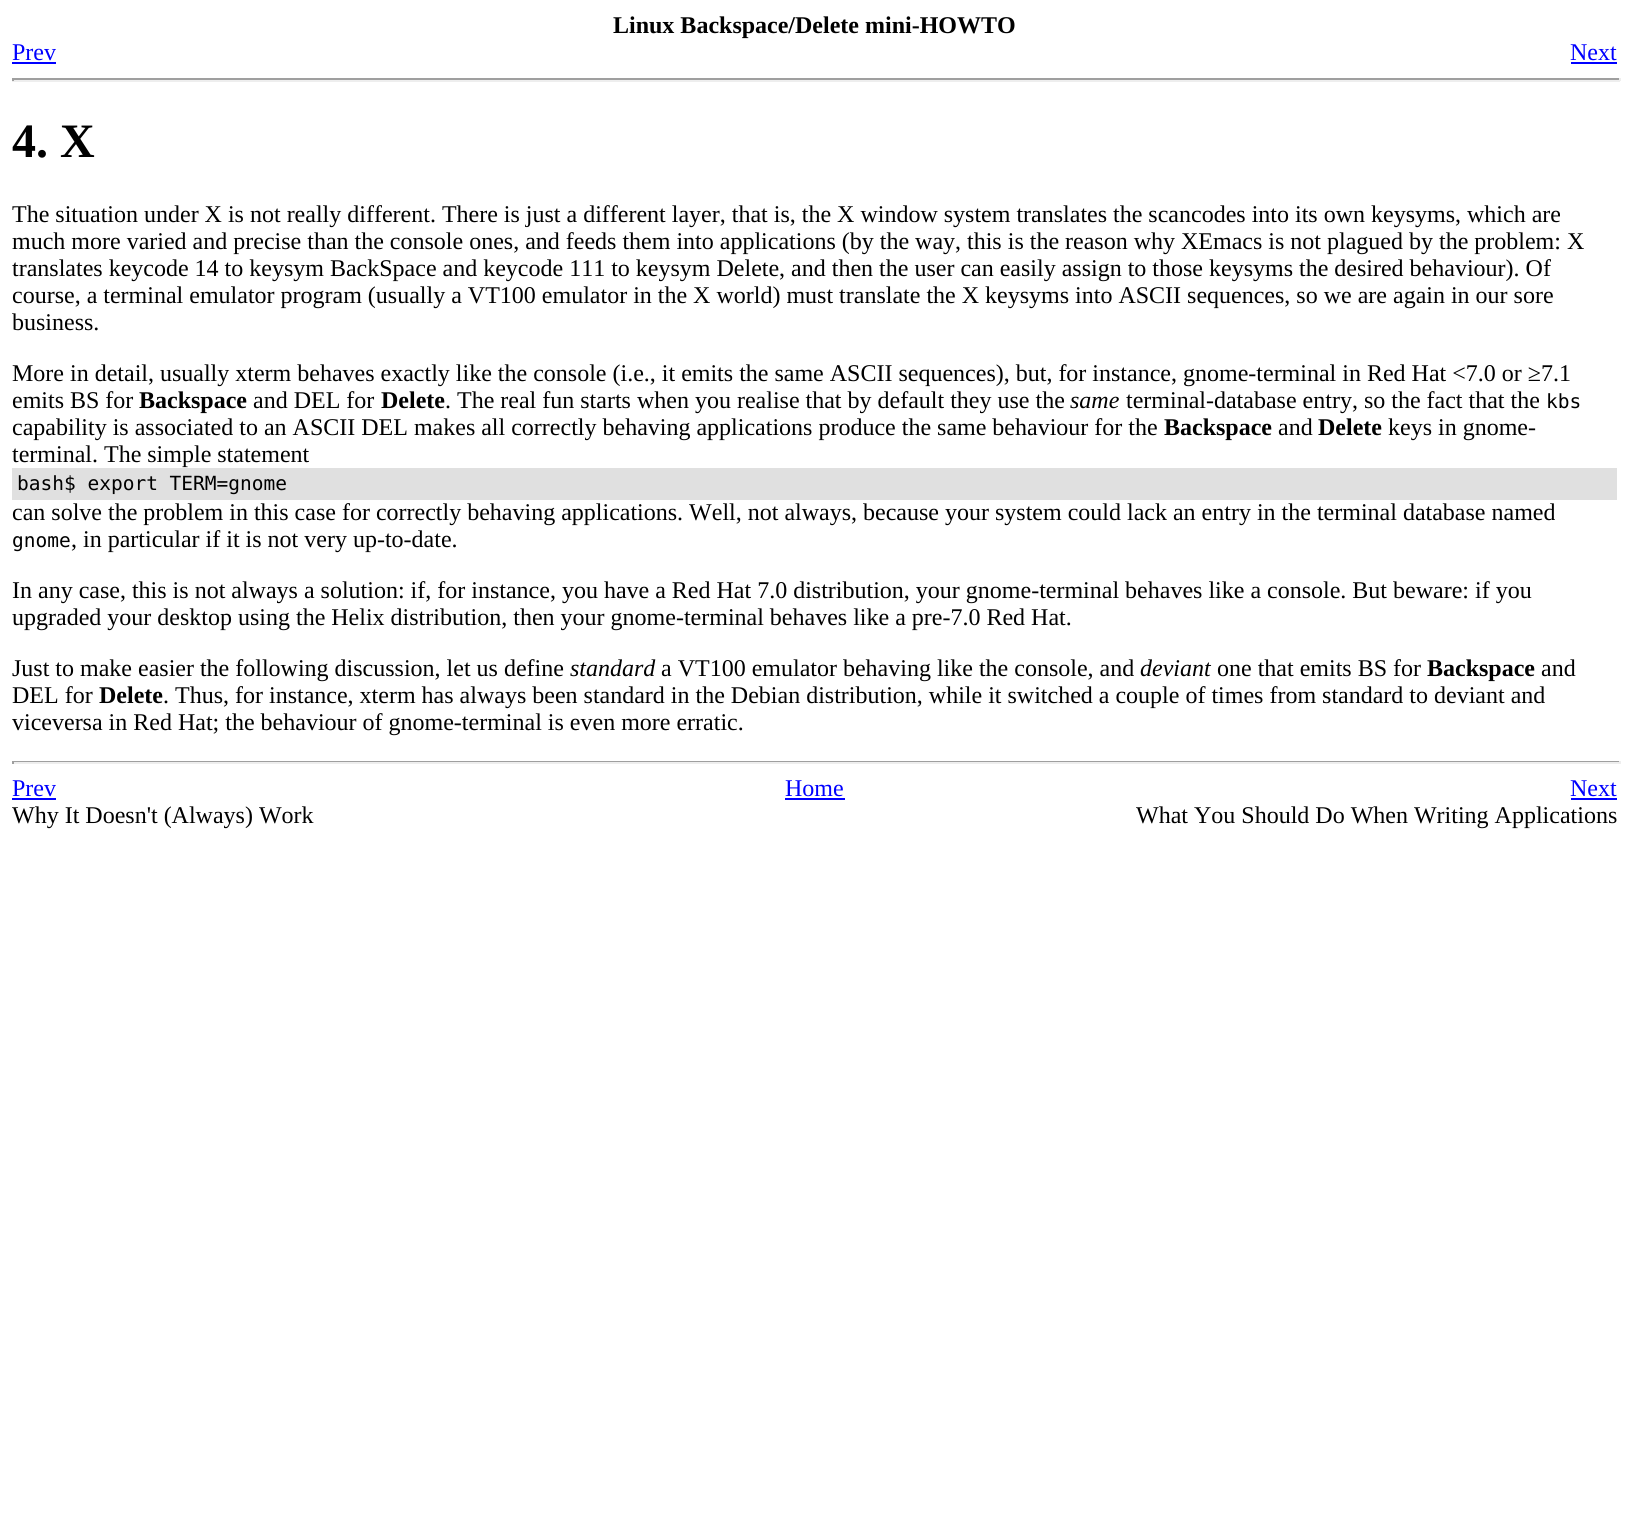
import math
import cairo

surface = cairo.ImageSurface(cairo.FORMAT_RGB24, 1628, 1527)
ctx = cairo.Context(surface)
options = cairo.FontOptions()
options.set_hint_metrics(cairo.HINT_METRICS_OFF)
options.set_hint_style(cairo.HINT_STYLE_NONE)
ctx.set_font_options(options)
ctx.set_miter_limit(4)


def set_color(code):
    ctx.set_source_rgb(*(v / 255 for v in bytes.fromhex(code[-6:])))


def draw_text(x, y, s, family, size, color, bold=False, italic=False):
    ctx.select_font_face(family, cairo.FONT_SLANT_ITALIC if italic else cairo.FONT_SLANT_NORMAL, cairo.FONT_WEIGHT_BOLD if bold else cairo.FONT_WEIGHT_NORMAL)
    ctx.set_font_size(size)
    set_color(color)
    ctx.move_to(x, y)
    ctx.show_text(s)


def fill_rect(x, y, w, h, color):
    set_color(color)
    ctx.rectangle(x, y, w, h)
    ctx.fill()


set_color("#ffffff")
ctx.paint()
draw_text(613, 33, "Linux Backspace/Delete mini-HOWTO", "Liberation Serif", 24, "#000000", bold=True)
draw_text(12, 60, "Prev", "Liberation Serif", 24, "#0000ff")
fill_rect(12, 62, 44, 2, "#0000ff")
draw_text(1570, 60, "Next", "Liberation Serif", 24, "#0000ff")
fill_rect(1571, 62, 46, 2, "#0000ff")
fill_rect(12, 78, 1608, 2, "#9f9f9f")
fill_rect(1619, 78, 2, 3, "#eeeeee")
fill_rect(12, 80, 1608, 2, "#eeeeee")
fill_rect(12, 78, 2, 3, "#9f9f9f")
draw_text(12, 157, "4. X", "Liberation Serif", 48, "#000000", bold=True)
draw_text(12, 222, "The situation under X is not really different. There is just a different layer, that is, the X window system translates the scancodes into its own keysyms, which are", "Liberation Serif", 24, "#000000")
draw_text(12, 249, "much more varied and precise than the console ones, and feeds them into applications (by the way, this is the reason why XEmacs is not plagued by the problem: X", "Liberation Serif", 24, "#000000")
draw_text(12, 276, "translates keycode 14 to keysym BackSpace and keycode 111 to keysym Delete, and then the user can easily assign to those keysyms the desired behaviour). Of", "Liberation Serif", 24, "#000000")
draw_text(12, 303, "course, a terminal emulator program (usually a VT100 emulator in the X world) must translate the X keysyms into ASCII sequences, so we are again in our sore", "Liberation Serif", 24, "#000000")
draw_text(12, 330, "business.", "Liberation Serif", 24, "#000000")
draw_text(12, 381, "More in detail, usually xterm behaves exactly like the console (i.e., it emits the same ASCII sequences), but, for instance, gnome-terminal in Red Hat <7.0 or ≥7.1", "Liberation Serif", 24, "#000000")
draw_text(12, 408, "emits BS for", "Liberation Serif", 24, "#000000")
draw_text(139, 408, "Backspace", "Liberation Serif", 24, "#000000", bold=True)
draw_text(253, 408, "and DEL for", "Liberation Serif", 24, "#000000")
draw_text(381, 408, "Delete", "Liberation Serif", 24, "#000000", bold=True)
draw_text(445, 408, ". The real fun starts when you realise that by default they use the", "Liberation Serif", 24, "#000000")
draw_text(1070, 408, "same", "Liberation Serif", 24, "#000000", italic=True)
draw_text(1126, 408, "terminal-database entry, so the fact that the", "Liberation Serif", 24, "#000000")
draw_text(1546, 408, "kbs", "DejaVu Sans Mono", 19.5, "#000000")
draw_text(12, 435, "capability is associated to an ASCII DEL makes all correctly behaving applications produce the same behaviour for the", "Liberation Serif", 24, "#000000")
draw_text(1164, 435, "Backspace", "Liberation Serif", 24, "#000000", bold=True)
draw_text(1278, 435, "and", "Liberation Serif", 24, "#000000")
draw_text(1318, 435, "Delete", "Liberation Serif", 24, "#000000", bold=True)
draw_text(1388, 435, "keys in gnome-", "Liberation Serif", 24, "#000000")
draw_text(12, 462, "terminal. The simple statement", "Liberation Serif", 24, "#000000")
fill_rect(12, 468, 1605, 32, "#e0e0e0")
draw_text(17, 490, "bash$ export TERM=gnome", "DejaVu Sans Mono", 19.5, "#000000")
draw_text(12, 520, "can solve the problem in this case for correctly behaving applications. Well, not always, because your system could lack an entry in the terminal database named", "Liberation Serif", 24, "#000000")
draw_text(12, 547, "gnome", "DejaVu Sans Mono", 19.5, "#000000")
draw_text(71, 547, ", in particular if it is not very up-to-date.", "Liberation Serif", 24, "#000000")
draw_text(12, 598, "In any case, this is not always a solution: if, for instance, you have a Red Hat 7.0 distribution, your gnome-terminal behaves like a console. But beware: if you", "Liberation Serif", 24, "#000000")
draw_text(12, 625, "upgraded your desktop using the Helix distribution, then your gnome-terminal behaves like a pre-7.0 Red Hat.", "Liberation Serif", 24, "#000000")
draw_text(12, 676, "Just to make easier the following discussion, let us define", "Liberation Serif", 24, "#000000")
draw_text(570, 676, "standard", "Liberation Serif", 24, "#000000", italic=True)
draw_text(661, 676, "a VT100 emulator behaving like the console, and", "Liberation Serif", 24, "#000000")
draw_text(1140, 676, "deviant", "Liberation Serif", 24, "#000000", italic=True)
draw_text(1217, 676, "one that emits BS for", "Liberation Serif", 24, "#000000")
draw_text(1427, 676, "Backspace", "Liberation Serif", 24, "#000000", bold=True)
draw_text(1541, 676, "and", "Liberation Serif", 24, "#000000")
draw_text(12, 703, "DEL for", "Liberation Serif", 24, "#000000")
draw_text(99, 703, "Delete", "Liberation Serif", 24, "#000000", bold=True)
draw_text(163, 703, ". Thus, for instance, xterm has always been standard in the Debian distribution, while it switched a couple of times from standard to deviant and", "Liberation Serif", 24, "#000000")
draw_text(12, 730, "viceversa in Red Hat; the behaviour of gnome-terminal is even more erratic.", "Liberation Serif", 24, "#000000")
fill_rect(12, 761, 1608, 1, "#9f9f9f")
fill_rect(1619, 761, 2, 3, "#eeeeee")
fill_rect(12, 762, 1608, 2, "#eeeeee")
fill_rect(12, 761, 2, 3, "#9f9f9f")
draw_text(12, 796, "Prev", "Liberation Serif", 24, "#0000ff")
fill_rect(12, 798, 44, 2, "#0000ff")
draw_text(785, 796, "Home", "Liberation Serif", 24, "#0000ff")
fill_rect(785, 798, 60, 2, "#0000ff")
draw_text(1570, 796, "Next", "Liberation Serif", 24, "#0000ff")
fill_rect(1571, 798, 46, 2, "#0000ff")
draw_text(12, 823, "Why It Doesn't (Always) Work", "Liberation Serif", 24, "#000000")
draw_text(1136, 823, "What You Should Do When Writing Applications", "Liberation Serif", 24, "#000000")
surface.write_to_png("output.png")
